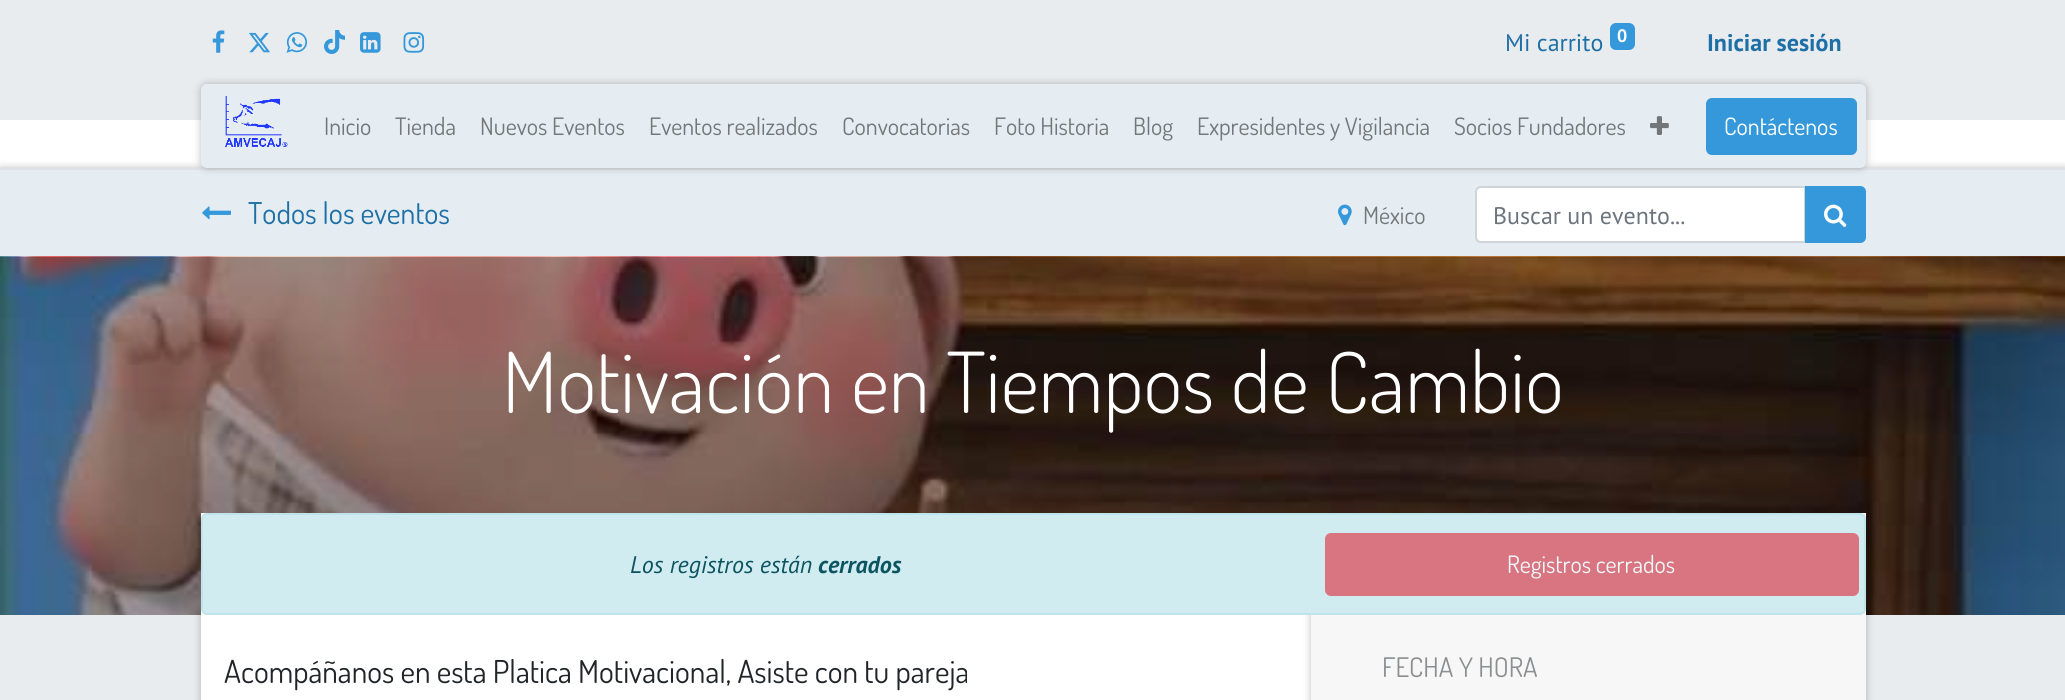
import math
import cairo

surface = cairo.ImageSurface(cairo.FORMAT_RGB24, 2065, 700)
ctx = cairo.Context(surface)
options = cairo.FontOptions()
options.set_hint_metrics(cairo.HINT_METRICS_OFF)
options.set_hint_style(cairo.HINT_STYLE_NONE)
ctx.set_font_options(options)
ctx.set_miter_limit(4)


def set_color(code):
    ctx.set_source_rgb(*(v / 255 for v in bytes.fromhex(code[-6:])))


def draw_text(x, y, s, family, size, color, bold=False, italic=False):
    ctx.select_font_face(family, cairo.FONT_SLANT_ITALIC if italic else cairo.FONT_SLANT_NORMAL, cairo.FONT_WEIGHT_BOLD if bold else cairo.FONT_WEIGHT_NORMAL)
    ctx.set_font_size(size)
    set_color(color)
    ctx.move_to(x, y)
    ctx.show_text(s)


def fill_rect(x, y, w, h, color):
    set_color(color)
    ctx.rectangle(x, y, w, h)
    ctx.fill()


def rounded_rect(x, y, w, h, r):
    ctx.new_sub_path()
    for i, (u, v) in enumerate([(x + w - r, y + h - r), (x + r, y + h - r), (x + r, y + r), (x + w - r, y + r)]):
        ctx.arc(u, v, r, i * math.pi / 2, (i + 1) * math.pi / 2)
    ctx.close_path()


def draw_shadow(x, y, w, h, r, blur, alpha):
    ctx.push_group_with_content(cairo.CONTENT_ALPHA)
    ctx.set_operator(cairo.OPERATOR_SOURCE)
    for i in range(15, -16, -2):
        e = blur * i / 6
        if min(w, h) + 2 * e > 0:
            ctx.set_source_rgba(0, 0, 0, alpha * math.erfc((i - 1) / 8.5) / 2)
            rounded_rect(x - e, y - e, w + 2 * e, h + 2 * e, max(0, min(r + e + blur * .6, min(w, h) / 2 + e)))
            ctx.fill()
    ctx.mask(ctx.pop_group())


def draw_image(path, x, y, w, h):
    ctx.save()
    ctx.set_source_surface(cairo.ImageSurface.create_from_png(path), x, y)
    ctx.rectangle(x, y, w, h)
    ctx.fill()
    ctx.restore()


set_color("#ffffff")
ctx.paint()
fill_rect(0, 0, 2065, 120, "#e9ecef")
draw_image("assets/img1.png", 212, 30, 13, 23)
draw_image("assets/img2.png", 249, 32, 21, 21)
draw_image("assets/img3.png", 286, 32, 22, 21)
draw_image("assets/img4.png", 324, 30, 21, 24)
draw_image("assets/img5.png", 360, 32, 21, 21)
draw_image("assets/img6.png", 403, 32, 22, 21)
draw_text(1505, 51, "Mi carrito", "PT Sans", 24, "#1d6fa5")
set_color("#3498db")
rounded_rect(1610, 23, 25, 27, 6)
ctx.fill()
draw_text(1617, 42, "0", "PT Sans", 18, "#ffffff", bold=True)
draw_text(1707, 51, "Iniciar sesión", "PT Sans", 24, "#1d6fa5", bold=True)
set_color("#000000")
draw_shadow(0, 168, 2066, 89, 0, 4, 0.25)
fill_rect(0, 170, 2065, 86, "#e5edf2")
fill_rect(0, 168, 2065, 2, "#dee2e6")
set_color("#000000")
draw_shadow(201, 84, 1665, 84, 6, 4, 0.25)
set_color("#e5edf2")
rounded_rect(201, 84, 1665, 84, 6)
ctx.fill()
draw_image("assets/img7.png", 225, 96, 63, 51)
draw_text(324, 135, "Inicio", "Dosis", 24, "#737779")
draw_text(395, 135, "Tienda", "Dosis", 24, "#737779")
draw_text(480, 135, "Nuevos Eventos", "Dosis", 24, "#737779")
draw_text(649, 135, "Eventos realizados", "Dosis", 24, "#737779")
draw_text(842, 135, "Convocatorias", "Dosis", 24, "#737779")
draw_text(994, 135, "Foto Historia", "Dosis", 24, "#737779")
draw_text(1133, 135, "Blog", "Dosis", 24, "#737779")
draw_text(1197, 135, "Expresidentes y Vigilancia", "Dosis", 24, "#737779")
draw_text(1454, 135, "Socios Fundadores", "Dosis", 24, "#737779")
draw_image("assets/img8.png", 1650, 116, 19, 19)
set_color("#3498db")
rounded_rect(1707, 99, 149, 55, 5)
ctx.fill_preserve()
ctx.stroke()
draw_text(1724, 135, "Contáctenos", "Dosis", 24, "#ffffff")
draw_image("assets/img9.png", 202, 206, 29, 14)
draw_text(248, 224, "Todos los eventos", "Dosis", 30, "#1d6fa5")
draw_image("assets/img10.png", 1338, 204, 14, 22)
draw_text(1363, 224, "México", "Dosis", 24, "#737779")
set_color("#ffffff")
ctx.new_path()
ctx.move_to(1481, 187)
ctx.line_to(1805, 187)
ctx.line_to(1805, 242)
ctx.line_to(1481, 242)
ctx.curve_to(1478, 242, 1476, 240, 1476, 237)
ctx.line_to(1476, 192)
ctx.curve_to(1476, 189, 1478, 187, 1481, 187)
ctx.close_path()
ctx.fill_preserve()
set_color("#ced4da")
ctx.stroke()
draw_text(1493, 224, "Buscar un evento...", "PT Sans", 24, "#6c757d")
set_color("#3498db")
ctx.new_path()
ctx.move_to(1806, 187)
ctx.line_to(1860, 187)
ctx.curve_to(1863, 187, 1865, 189, 1865, 192)
ctx.line_to(1865, 237)
ctx.curve_to(1865, 240, 1863, 242, 1860, 242)
ctx.line_to(1806, 242)
ctx.close_path()
ctx.fill_preserve()
ctx.stroke()
draw_image("assets/img11.png", 1824, 204, 23, 23)
draw_image("assets/img12.png", 0, 256, 2065, 359)
draw_text(502, 413, "Motivación en Tiempos de Cambio", "Dosis Light", 84, "#ffffff")
fill_rect(201, 513, 1665, 102, "#ffffff")
set_color("#d1ecf1")
rounded_rect(202, 514, 1663, 100, 5)
ctx.fill_preserve()
set_color("#bee5eb")
ctx.stroke()
draw_text(630, 573, "Los registros están", "PT Sans", 24, "#0c5460", italic=True)
draw_text(818, 573, "cerrados", "PT Sans", 24, "#0c5460", bold=True, italic=True)
set_color("#d87581")
rounded_rect(1326, 534, 532, 61, 5)
ctx.fill_preserve()
ctx.stroke()
draw_text(1507, 573, "Registros cerrados", "Dosis", 24, "#eff8fa")
fill_rect(0, 615, 2065, 85, "#e9ecef")
ctx.save()
ctx.rectangle(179, 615, 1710, 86)
ctx.clip()
set_color("#000000")
draw_shadow(201, 579, 1110, 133, 0, 4, 0.25)
ctx.restore()
fill_rect(201, 615, 1110, 85, "#ffffff")
draw_text(224, 683, "Acompáñanos en esta Platica Motivacional, Asiste con tu pareja", "Dosis", 31.5, "#212529")
ctx.save()
ctx.rectangle(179, 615, 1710, 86)
ctx.clip()
set_color("#000000")
draw_shadow(1311, 579, 555, 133, 0, 4, 0.25)
ctx.restore()
fill_rect(1311, 615, 555, 85, "#f7f7f7")
draw_text(1382, 677, "FECHA Y HORA", "Dosis", 27, "#8c8e90")
surface.write_to_png("output.png")
